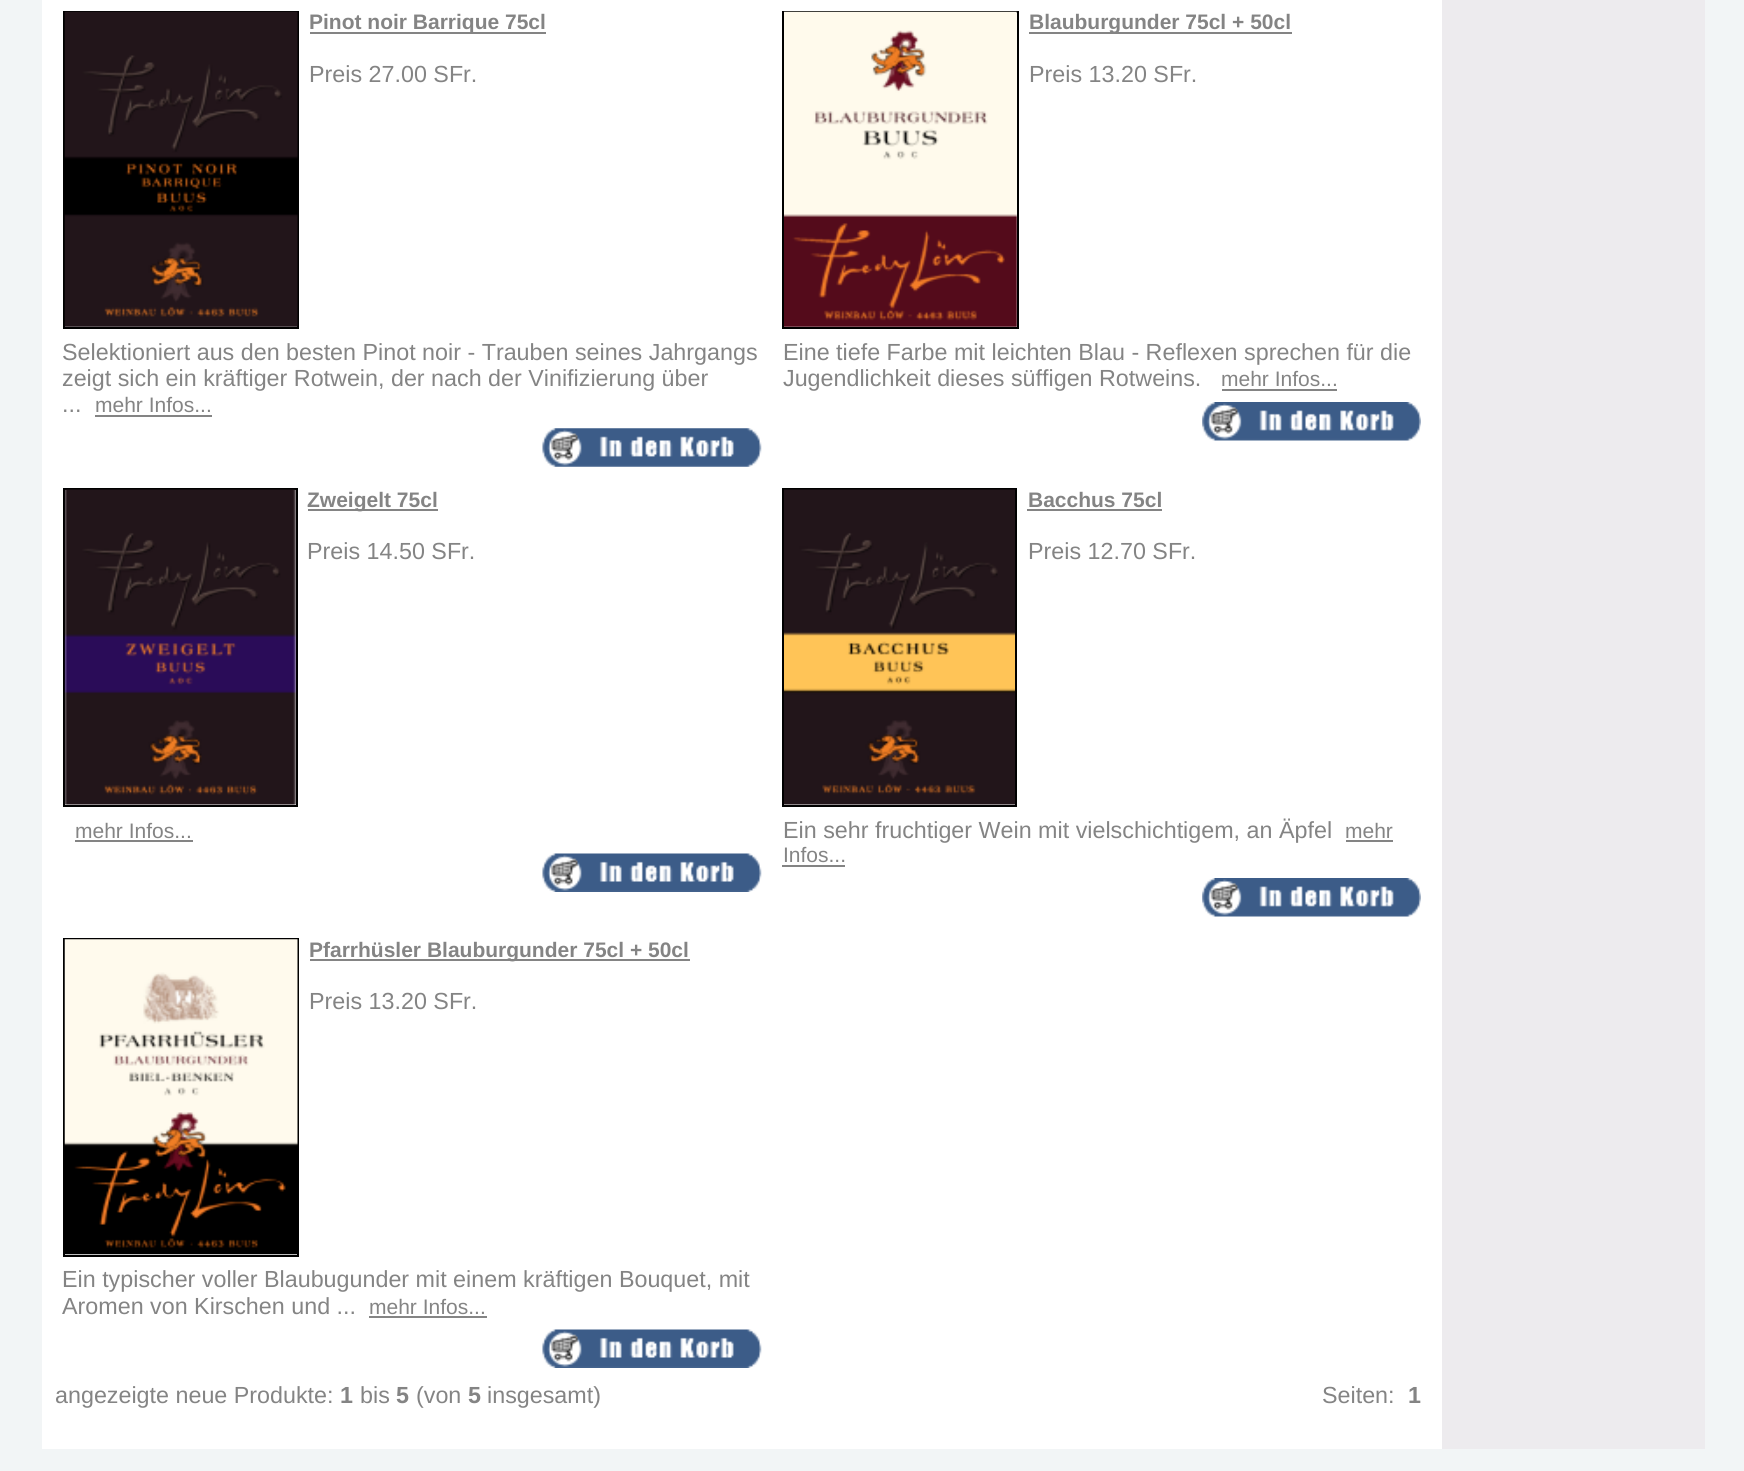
import math
import cairo

surface = cairo.ImageSurface(cairo.FORMAT_RGB24, 1744, 1471)
ctx = cairo.Context(surface)
options = cairo.FontOptions()
options.set_hint_metrics(cairo.HINT_METRICS_OFF)
options.set_hint_style(cairo.HINT_STYLE_NONE)
ctx.set_font_options(options)
ctx.set_miter_limit(4)


def set_color(code):
    ctx.set_source_rgb(*(v / 255 for v in bytes.fromhex(code[-6:])))


def draw_text(x, y, s, family, size, color, bold=False, italic=False):
    ctx.select_font_face(family, cairo.FONT_SLANT_ITALIC if italic else cairo.FONT_SLANT_NORMAL, cairo.FONT_WEIGHT_BOLD if bold else cairo.FONT_WEIGHT_NORMAL)
    ctx.set_font_size(size)
    set_color(color)
    ctx.move_to(x, y)
    ctx.show_text(s)


def fill_rect(x, y, w, h, color):
    set_color(color)
    ctx.rectangle(x, y, w, h)
    ctx.fill()


def draw_image(path, x, y, w, h):
    ctx.save()
    ctx.set_source_surface(cairo.ImageSurface.create_from_png(path), x, y)
    ctx.rectangle(x, y, w, h)
    ctx.fill()
    ctx.restore()


set_color("#f2f5f6")
ctx.paint()
fill_rect(42, 0, 1400, 1449, "#ffffff")
ctx.rectangle(64, 12, 234, 316)
set_color("#000000")
ctx.stroke()
draw_image("assets/img1.png", 64, 11, 234, 316)
fill_rect(310, 32, 236, 2, "#848484")
draw_text(309, 29, "Pinot noir Barrique 75cl", "Liberation Sans", 21, "#848484", bold=True)
draw_text(309, 82, "Preis 27.00 SFr.", "Liberation Sans", 23.3, "#848484")
draw_text(62, 360, "Selektioniert aus den besten Pinot noir - Trauben seines Jahrgangs", "Liberation Sans", 23.3, "#848484")
draw_text(62, 386, "zeigt sich ein kräftiger Rotwein, der nach der Vinifizierung über", "Liberation Sans", 23.3, "#848484")
draw_text(62, 412, "...", "Liberation Sans", 23.3, "#848484")
draw_text(95, 412, "mehr Infos...", "Liberation Sans", 21, "#848484")
fill_rect(95, 415, 117, 2, "#848484")
draw_image("assets/img2.png", 542, 428, 220, 39)
ctx.rectangle(783, 12, 235, 316)
set_color("#000000")
ctx.stroke()
draw_image("assets/img3.png", 784, 11, 233, 316)
fill_rect(1029, 32, 263, 2, "#848484")
draw_text(1029, 29, "Blauburgunder 75cl + 50cl", "Liberation Sans", 21, "#848484", bold=True)
draw_text(1029, 82, "Preis 13.20 SFr.", "Liberation Sans", 23.3, "#848484")
draw_text(783, 360, "Eine tiefe Farbe mit leichten Blau - Reflexen sprechen für die", "Liberation Sans", 23.3, "#848484")
draw_text(783, 386, "Jugendlichkeit dieses süffigen Rotweins.", "Liberation Sans", 23.3, "#848484")
draw_text(1221, 386, "mehr Infos...", "Liberation Sans", 21, "#848484")
fill_rect(1222, 389, 115, 2, "#848484")
draw_image("assets/img4.png", 1202, 402, 219, 39)
ctx.rectangle(64, 489, 233, 317)
set_color("#000000")
ctx.stroke()
draw_image("assets/img5.png", 64, 489, 232, 316)
fill_rect(308, 509, 130, 2, "#848484")
draw_text(307, 507, "Zweigelt 75cl", "Liberation Sans", 21, "#848484", bold=True)
draw_text(307, 559, "Preis 14.50 SFr.", "Liberation Sans", 23.3, "#848484")
draw_text(75, 838, "mehr Infos...", "Liberation Sans", 21, "#848484")
fill_rect(75, 840, 118, 2, "#848484")
draw_image("assets/img6.png", 542, 853, 220, 39)
ctx.rectangle(783, 489, 233, 317)
set_color("#000000")
ctx.stroke()
draw_image("assets/img7.png", 784, 489, 231, 316)
draw_text(1028, 507, "Bacchus 75cl", "Liberation Sans", 21, "#848484", bold=True)
fill_rect(1027, 509, 135, 2, "#848484")
draw_text(1028, 559, "Preis 12.70 SFr.", "Liberation Sans", 23.3, "#848484")
draw_text(783, 838, "Ein sehr fruchtiger Wein mit vielschichtigem, an Äpfel", "Liberation Sans", 23.3, "#848484")
draw_text(1345, 838, "mehr", "Liberation Sans", 21, "#848484")
fill_rect(1346, 840, 47, 2, "#848484")
draw_text(783, 862, "Infos...", "Liberation Sans", 21, "#848484")
fill_rect(782, 865, 63, 2, "#848484")
draw_image("assets/img4.png", 1202, 878, 219, 39)
ctx.rectangle(64, 939, 234, 317)
set_color("#000000")
ctx.stroke()
draw_image("assets/img8.png", 64, 939, 234, 316)
fill_rect(310, 959, 380, 2, "#848484")
draw_text(309, 957, "Pfarrhüsler Blauburgunder 75cl + 50cl", "Liberation Sans", 21, "#848484", bold=True)
draw_text(309, 1009, "Preis 13.20 SFr.", "Liberation Sans", 23.3, "#848484")
draw_text(62, 1287, "Ein typischer voller Blaubugunder mit einem kräftigen Bouquet, mit", "Liberation Sans", 23.3, "#848484")
draw_text(62, 1314, "Aromen von Kirschen und ...", "Liberation Sans", 23.3, "#848484")
draw_text(369, 1314, "mehr Infos...", "Liberation Sans", 21, "#848484")
fill_rect(369, 1316, 118, 2, "#848484")
draw_image("assets/img6.png", 542, 1329, 220, 39)
draw_text(55, 1403, "angezeigte neue Produkte:", "Liberation Sans", 23.3, "#848484")
draw_text(340, 1403, "1", "Liberation Sans", 23.3, "#848484", bold=True)
draw_text(360, 1403, "bis", "Liberation Sans", 23.3, "#848484")
draw_text(396, 1403, "5", "Liberation Sans", 23.3, "#848484", bold=True)
draw_text(416, 1403, "(von", "Liberation Sans", 23.3, "#848484")
draw_text(468, 1403, "5", "Liberation Sans", 23.3, "#848484", bold=True)
draw_text(487, 1403, "insgesamt)", "Liberation Sans", 23.3, "#848484")
draw_text(1322, 1403, "Seiten:", "Liberation Sans", 23.3, "#848484")
draw_text(1408, 1403, "1", "Liberation Sans", 23.3, "#848484", bold=True)
fill_rect(1442, 0, 263, 1449, "#edebee")
surface.write_to_png("output.png")
